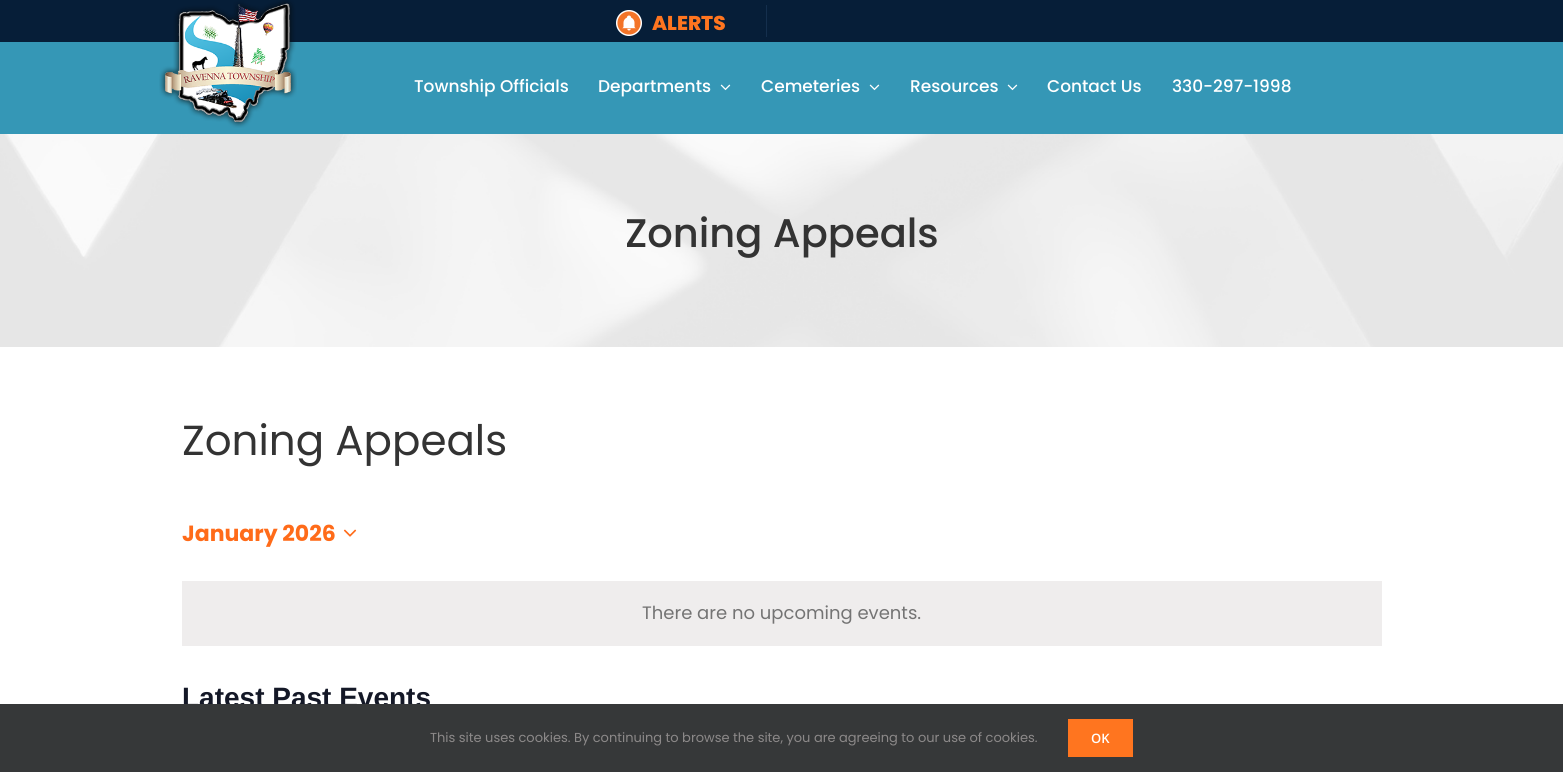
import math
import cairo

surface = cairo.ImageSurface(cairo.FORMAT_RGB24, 1563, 772)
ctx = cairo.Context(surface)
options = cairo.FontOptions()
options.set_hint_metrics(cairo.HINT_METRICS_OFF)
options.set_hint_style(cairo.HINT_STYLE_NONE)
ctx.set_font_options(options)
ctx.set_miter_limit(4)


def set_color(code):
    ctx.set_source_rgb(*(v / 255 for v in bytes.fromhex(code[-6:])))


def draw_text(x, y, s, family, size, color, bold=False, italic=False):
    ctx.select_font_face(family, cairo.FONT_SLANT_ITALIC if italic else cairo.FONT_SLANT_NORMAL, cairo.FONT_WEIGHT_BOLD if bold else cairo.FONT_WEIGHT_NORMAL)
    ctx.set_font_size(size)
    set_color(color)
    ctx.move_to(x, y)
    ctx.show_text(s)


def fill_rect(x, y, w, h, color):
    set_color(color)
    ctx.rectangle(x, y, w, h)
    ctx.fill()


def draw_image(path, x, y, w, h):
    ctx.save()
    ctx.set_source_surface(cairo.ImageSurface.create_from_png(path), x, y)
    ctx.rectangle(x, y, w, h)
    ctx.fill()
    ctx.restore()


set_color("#ffffff")
ctx.paint()
fill_rect(0, 0, 1563, 42, "#061e38")
fill_rect(766, 5, 1, 32, "#142f4d")
draw_image("assets/img1.png", 616, 10, 26, 26)
draw_text(652, 30, "ALERTS", "Poppins ExtraBold", 20, "#ff751f")
fill_rect(0, 42, 1563, 92, "#3597b6")
draw_image("assets/img2.png", 159, 0, 138, 128)
draw_text(414, 92, "Township Officials", "Poppins Medium", 17, "#ffffff")
draw_text(598, 92, "Departments", "Poppins Medium", 17, "#ffffff")
draw_image("assets/img3.png", 720, 84, 11, 7)
draw_text(761, 92, "Cemeteries", "Poppins Medium", 17, "#ffffff")
draw_image("assets/img3.png", 869, 84, 11, 7)
draw_text(910, 92, "Resources", "Poppins Medium", 17, "#ffffff")
draw_image("assets/img3.png", 1007, 84, 11, 7)
draw_text(1047, 92, "Contact Us", "Poppins Medium", 17, "#ffffff")
draw_text(1172, 92, "330-297-1998", "Poppins Medium", 17, "#ffffff")
draw_image("assets/img4.png", 0, 134, 1563, 213)
draw_text(625, 247, "Zoning Appeals", "Poppins Medium", 40, "#333333")
draw_text(182, 455, "Zoning Appeals", "Poppins", 42, "#333333")
draw_text(182, 541, "January 2026", "Poppins", 22, "#ff6b19", bold=True)
draw_image("assets/img5.png", 343, 529, 14, 8)
fill_rect(182, 581, 1200, 65, "#efeded")
draw_text(642, 619, "There are no upcoming events.", "Poppins", 18, "#747474")
draw_text(182, 707, "Latest Past Events", "Liberation Sans", 28, "#141827", bold=True)
fill_rect(0, 704, 1563, 68, "#363839")
draw_text(430, 742, "This site uses cookies. By continuing to browse the site, you are agreeing to our use of cookies.", "Poppins", 13, "#8c8989")
fill_rect(1068, 719, 65, 38, "#ff751f")
draw_text(1091, 743, "OK", "Open Sans SemiBold", 13, "#ffffff")
surface.write_to_png("output.png")
